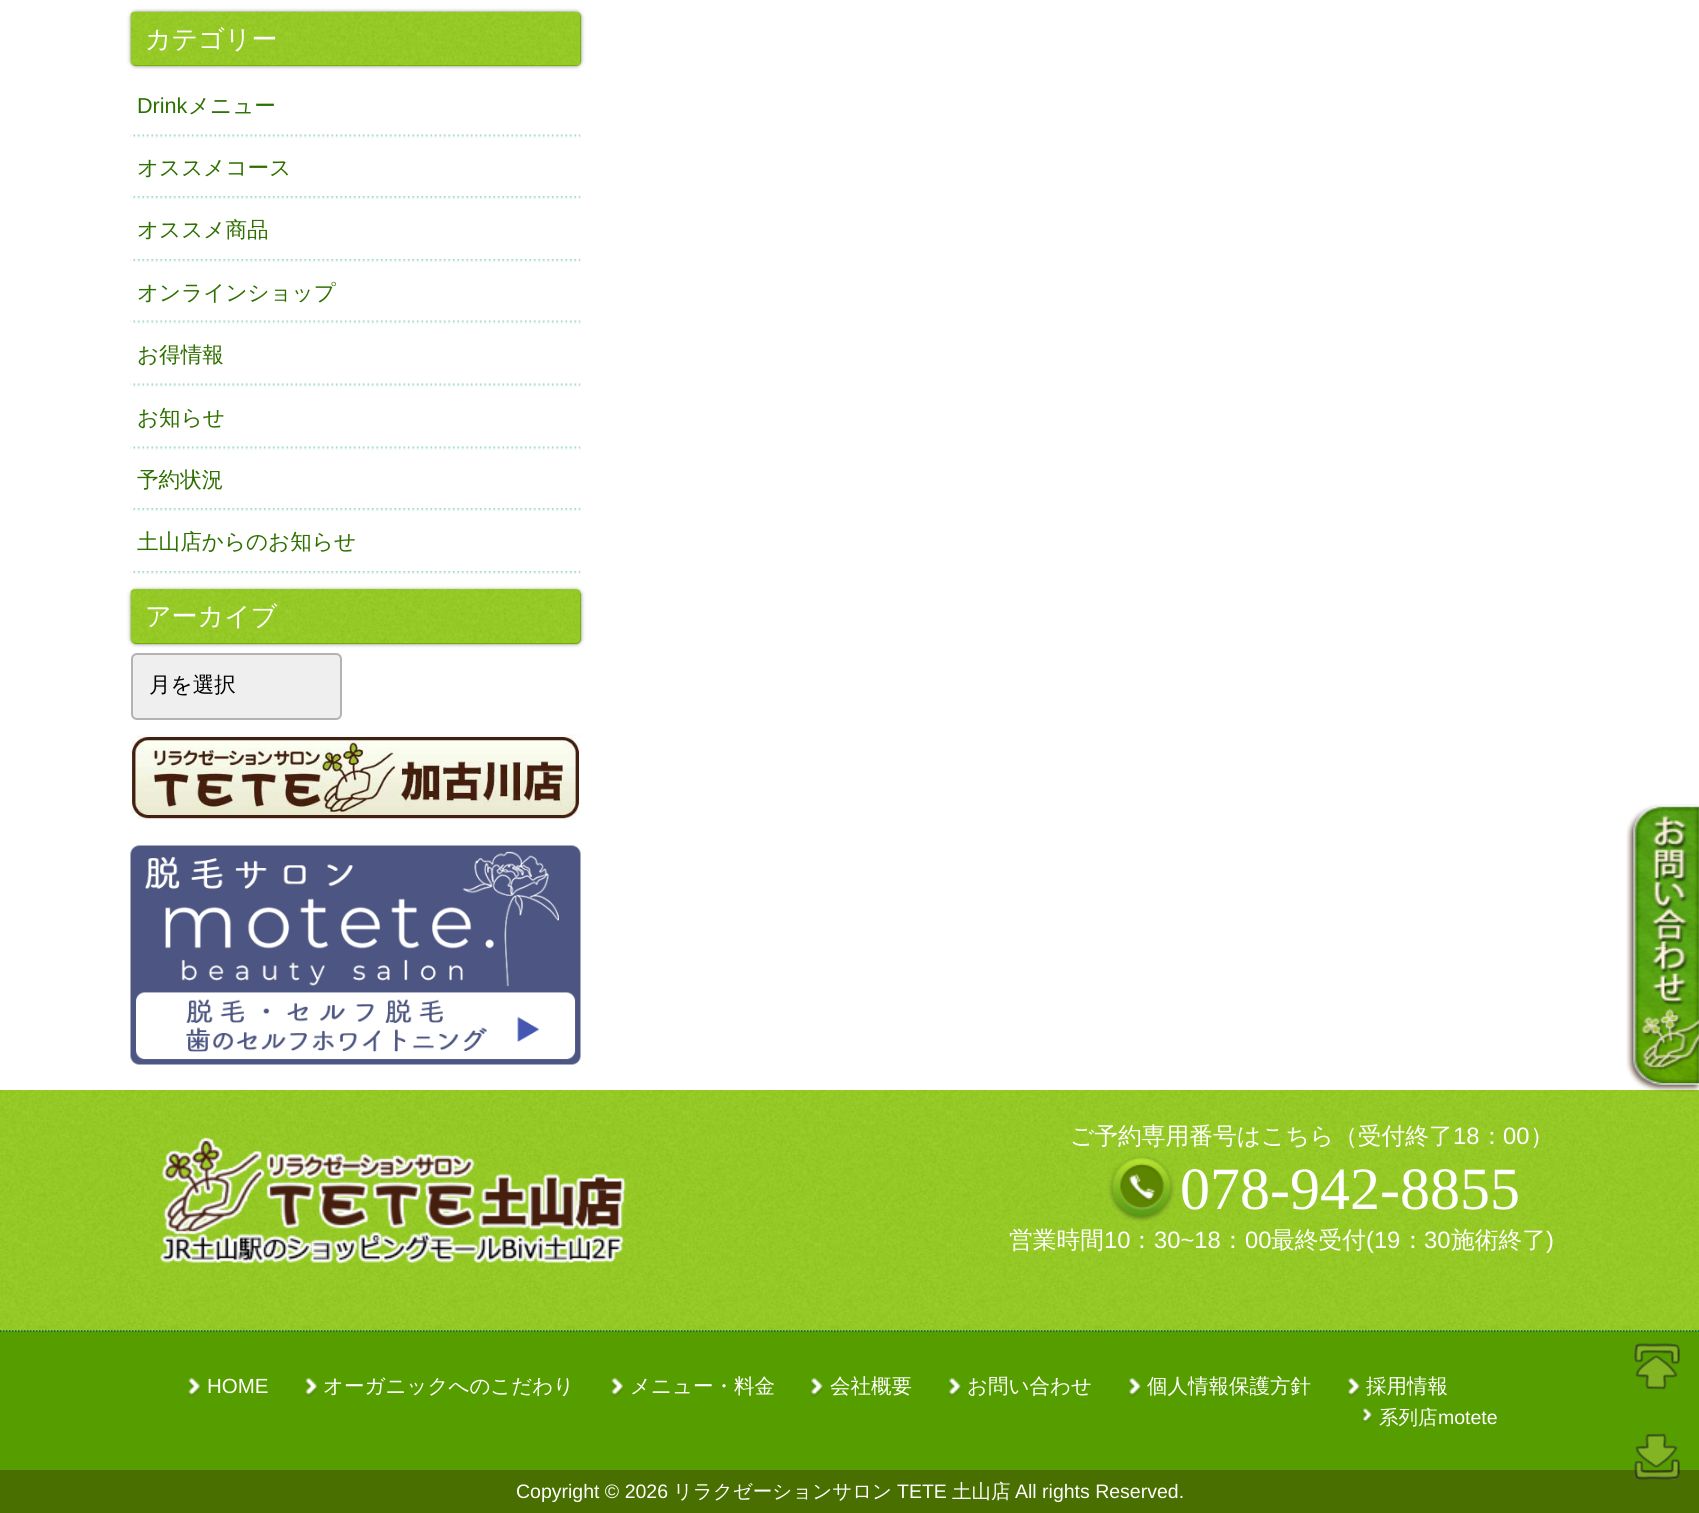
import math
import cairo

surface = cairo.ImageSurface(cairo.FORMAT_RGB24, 1699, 1513)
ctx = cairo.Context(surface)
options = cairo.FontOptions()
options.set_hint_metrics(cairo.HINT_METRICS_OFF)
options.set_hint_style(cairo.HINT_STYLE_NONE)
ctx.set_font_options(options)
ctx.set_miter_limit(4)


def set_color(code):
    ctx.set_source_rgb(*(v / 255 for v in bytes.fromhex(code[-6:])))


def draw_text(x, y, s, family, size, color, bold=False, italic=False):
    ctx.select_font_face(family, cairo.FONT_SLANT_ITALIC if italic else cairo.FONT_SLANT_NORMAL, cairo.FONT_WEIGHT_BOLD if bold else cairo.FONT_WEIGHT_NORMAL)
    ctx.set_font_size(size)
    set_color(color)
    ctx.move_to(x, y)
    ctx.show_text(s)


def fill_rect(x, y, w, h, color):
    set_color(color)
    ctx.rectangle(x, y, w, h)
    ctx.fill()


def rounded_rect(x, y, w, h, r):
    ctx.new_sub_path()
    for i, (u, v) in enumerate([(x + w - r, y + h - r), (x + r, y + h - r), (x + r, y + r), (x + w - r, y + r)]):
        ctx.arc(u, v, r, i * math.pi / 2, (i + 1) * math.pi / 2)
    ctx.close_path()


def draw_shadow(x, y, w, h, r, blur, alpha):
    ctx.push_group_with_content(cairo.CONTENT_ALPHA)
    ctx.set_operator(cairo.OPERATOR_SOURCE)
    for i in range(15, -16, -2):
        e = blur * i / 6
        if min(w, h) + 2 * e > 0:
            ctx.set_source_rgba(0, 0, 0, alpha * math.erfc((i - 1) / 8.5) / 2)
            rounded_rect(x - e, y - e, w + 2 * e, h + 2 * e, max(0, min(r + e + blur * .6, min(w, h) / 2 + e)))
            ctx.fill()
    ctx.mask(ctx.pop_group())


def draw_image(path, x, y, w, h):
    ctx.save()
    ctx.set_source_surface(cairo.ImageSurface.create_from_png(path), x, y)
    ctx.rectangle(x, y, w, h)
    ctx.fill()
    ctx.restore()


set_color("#ffffff")
ctx.paint()
set_color("#000000")
draw_shadow(131, 12, 450, 54, 5, 2, 0.5)
set_color("#6fab00")
rounded_rect(131, 12, 450, 54, 5)
ctx.fill()
draw_image("assets/img1.png", 130, 11, 451, 55)
draw_text(145, 48, "カテゴリー", "WenQuanYi Zen Hei Medium", 26, "#ffffff")
draw_image("assets/img2.png", 130, 134, 451, 4)
draw_text(137, 113, "Drink", "Liberation Sans", 21.6, "#2e7000")
draw_text(188, 113, "メニュー", "WenQuanYi Zen Hei Medium", 21.6, "#2e7000")
draw_image("assets/img3.png", 130, 196, 451, 3)
draw_text(137, 175, "オススメコース", "WenQuanYi Zen Hei Medium", 21.6, "#2e7000")
draw_image("assets/img4.png", 130, 259, 451, 3)
draw_text(137, 237, "オススメ商品", "WenQuanYi Zen Hei Medium", 21.6, "#2e7000")
draw_image("assets/img2.png", 130, 320, 451, 4)
draw_text(137, 300, "オンラインショップ", "WenQuanYi Zen Hei Medium", 21.6, "#2e7000")
draw_image("assets/img2.png", 130, 383, 451, 4)
draw_text(137, 362, "お得情報", "WenQuanYi Zen Hei Medium", 21.6, "#2e7000")
draw_image("assets/img2.png", 130, 446, 451, 4)
draw_text(137, 425, "お知らせ", "WenQuanYi Zen Hei Medium", 21.6, "#2e7000")
draw_image("assets/img3.png", 130, 508, 451, 3)
draw_text(137, 487, "予約状況", "WenQuanYi Zen Hei Medium", 21.6, "#2e7000")
draw_image("assets/img4.png", 130, 571, 451, 3)
draw_text(137, 549, "土山店からのお知らせ", "WenQuanYi Zen Hei Medium", 21.6, "#2e7000")
set_color("#000000")
draw_shadow(131, 590, 450, 54, 5, 2, 0.5)
set_color("#6fab00")
rounded_rect(131, 590, 450, 54, 5)
ctx.fill()
draw_image("assets/img5.png", 130, 589, 451, 54)
draw_text(145, 625, "アーカイブ", "WenQuanYi Zen Hei Medium", 26, "#ffffff")
set_color("#efefef")
rounded_rect(132, 654, 209, 65, 5)
ctx.fill_preserve()
set_color("#b3b3b3")
ctx.stroke()
draw_text(149, 692, "月を選択", "WenQuanYi Zen Hei Medium", 21.6, "#000000")
draw_image("assets/img6.png", 130, 734, 451, 88)
draw_image("assets/img7.png", 130, 845, 451, 220)
fill_rect(0, 1332, 1699, 138, "#569e00")
fill_rect(0, 1331, 1699, 1, "#2d5e56")
draw_image("assets/img9.png", 0, 1090, 1699, 242)
draw_image("assets/img8.png", 1626, 804, 73, 288)
ctx.new_path()
ctx.move_to(0, 1331)
ctx.line_to(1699.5, 1331)
set_color("#00633b")
ctx.set_line_width(1.5)
ctx.set_dash([1.5, 1.5])
ctx.stroke()
draw_image("assets/img10.png", 160, 1137, 466, 127)
draw_text(1070, 1144, "ご予約専用番号はこちら（受付終了", "WenQuanYi Zen Hei Medium", 23.75, "#ffffff")
draw_text(1453, 1144, "18", "Liberation Sans", 23.75, "#ffffff")
draw_text(1480, 1144, "：", "WenQuanYi Zen Hei Medium", 23.75, "#ffffff")
draw_text(1503, 1144, "00", "Liberation Sans", 23.75, "#ffffff")
draw_text(1530, 1144, "）", "WenQuanYi Zen Hei Medium", 23.75, "#ffffff")
draw_image("assets/img11.png", 1108, 1156, 67, 66)
draw_text(1180, 1209, "078-942-8855", "Liberation Serif", 60, "#ffffff")
draw_text(1009, 1248, "営業時間", "WenQuanYi Zen Hei Medium", 23.75, "#ffffff")
draw_text(1104, 1248, "10", "Liberation Sans", 23.75, "#ffffff")
draw_text(1130, 1248, "：", "WenQuanYi Zen Hei Medium", 23.75, "#ffffff")
draw_text(1154, 1248, "30~18", "Liberation Sans", 23.75, "#ffffff")
draw_text(1221, 1248, "：", "WenQuanYi Zen Hei Medium", 23.75, "#ffffff")
draw_text(1245, 1248, "00", "Liberation Sans", 23.75, "#ffffff")
draw_text(1271, 1248, "最終受付", "WenQuanYi Zen Hei Medium", 23.75, "#ffffff")
draw_text(1366, 1248, "(19", "Liberation Sans", 23.75, "#ffffff")
draw_text(1401, 1248, "：", "WenQuanYi Zen Hei Medium", 23.75, "#ffffff")
draw_text(1424, 1248, "30", "Liberation Sans", 23.75, "#ffffff")
draw_text(1451, 1248, "施術終了", "WenQuanYi Zen Hei Medium", 23.75, "#ffffff")
draw_text(1546, 1248, ")", "Liberation Sans", 23.75, "#ffffff")
draw_image("assets/img12.png", 188, 1378, 13, 19)
draw_text(207, 1393, "HOME", "Liberation Sans", 20.5, "#ffffff")
draw_image("assets/img12.png", 305, 1378, 13, 19)
draw_text(323, 1393, "オーガニックへのこだわり", "WenQuanYi Zen Hei Medium", 20.5, "#ffffff")
draw_image("assets/img13.png", 611, 1378, 13, 19)
draw_text(630, 1393, "メニュー・料金", "WenQuanYi Zen Hei Medium", 20.5, "#ffffff")
draw_image("assets/img14.png", 810, 1378, 13, 19)
draw_text(830, 1393, "会社概要", "WenQuanYi Zen Hei Medium", 20.5, "#ffffff")
draw_image("assets/img14.png", 948, 1378, 13, 19)
draw_text(967, 1393, "お問い合わせ", "WenQuanYi Zen Hei Medium", 20.5, "#ffffff")
draw_image("assets/img15.png", 1128, 1378, 13, 19)
draw_text(1147, 1393, "個人情報保護方針", "WenQuanYi Zen Hei Medium", 20.5, "#ffffff")
draw_image("assets/img15.png", 1347, 1378, 13, 19)
draw_text(1366, 1393, "採用情報", "WenQuanYi Zen Hei Medium", 20.5, "#ffffff")
draw_image("assets/img16.png", 1362, 1408, 10, 15)
draw_text(1379, 1424, "系列店", "WenQuanYi Zen Hei Medium", 19.5, "#ffffff")
draw_text(1438, 1424, "motete", "Liberation Sans", 19.5, "#ffffff")
fill_rect(0, 1470, 1699, 43, "#486f00")
draw_text(516, 1498, "Copyright © 2026", "Liberation Sans", 19.5, "#ffffff")
draw_text(673, 1498, "リラクゼーションサロン", "WenQuanYi Zen Hei Medium", 19.5, "#ffffff")
draw_text(897, 1498, "TETE", "Liberation Sans", 19.5, "#ffffff")
draw_text(952, 1498, "土山店", "WenQuanYi Zen Hei Medium", 19.5, "#ffffff")
draw_text(1015, 1498, "All rights Reserved.", "Liberation Sans", 19.5, "#ffffff")
draw_image("assets/img17.png", 1633, 1343, 47, 47)
draw_image("assets/img18.png", 1634, 1433, 46, 47)
surface.write_to_png("output.png")
